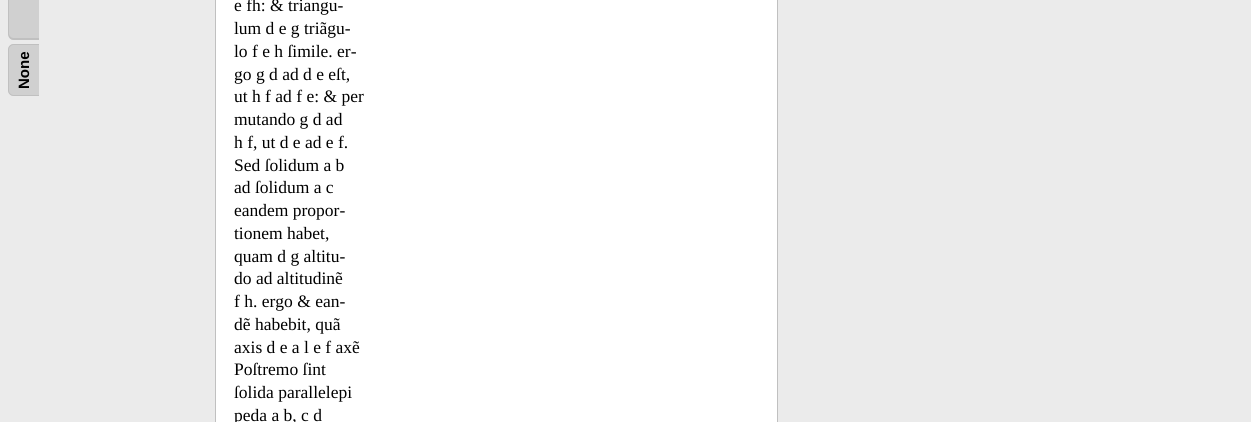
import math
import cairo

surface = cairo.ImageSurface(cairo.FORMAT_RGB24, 1251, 422)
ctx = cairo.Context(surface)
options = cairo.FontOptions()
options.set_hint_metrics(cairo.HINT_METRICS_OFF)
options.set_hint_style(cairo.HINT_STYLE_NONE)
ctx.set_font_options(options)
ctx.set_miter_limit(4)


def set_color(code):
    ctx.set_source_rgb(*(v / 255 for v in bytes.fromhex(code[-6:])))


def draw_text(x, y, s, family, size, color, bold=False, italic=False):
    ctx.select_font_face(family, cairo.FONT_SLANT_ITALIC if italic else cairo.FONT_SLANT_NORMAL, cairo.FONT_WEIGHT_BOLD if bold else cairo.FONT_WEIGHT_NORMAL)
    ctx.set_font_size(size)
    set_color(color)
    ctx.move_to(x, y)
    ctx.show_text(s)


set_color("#ebebeb")
ctx.paint()
set_color("#d0d0d0")
ctx.new_path()
ctx.move_to(8, 33)
ctx.line_to(8, -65)
ctx.curve_to(8, -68, 10, -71, 14, -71)
ctx.line_to(39, -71)
ctx.line_to(39, 40)
ctx.line_to(14, 40)
ctx.curve_to(10, 40, 8, 37, 8, 33)
ctx.close_path()
ctx.fill()
set_color("#c0c0c0")
ctx.set_fill_rule(cairo.FILL_RULE_EVEN_ODD)
ctx.new_path()
ctx.move_to(8, 33)
ctx.line_to(8, -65)
ctx.curve_to(8, -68, 10, -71, 14, -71)
ctx.line_to(39, -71)
ctx.line_to(39, 40)
ctx.line_to(14, 40)
ctx.curve_to(10, 40, 8, 37, 8, 33)
ctx.close_path()
ctx.move_to(9, 33)
ctx.line_to(9, -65)
ctx.curve_to(9, -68, 11, -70, 14, -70)
ctx.line_to(39, -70)
ctx.line_to(39, 38)
ctx.line_to(14, 38)
ctx.curve_to(11, 38, 9, 36, 9, 33)
ctx.close_path()
ctx.fill()
set_color("#d0d0d0")
ctx.set_fill_rule(cairo.FILL_RULE_WINDING)
ctx.new_path()
ctx.move_to(8, 90)
ctx.line_to(8, 50)
ctx.curve_to(8, 47, 10, 44, 14, 44)
ctx.line_to(39, 44)
ctx.line_to(39, 96)
ctx.line_to(14, 96)
ctx.curve_to(10, 96, 8, 93, 8, 90)
ctx.close_path()
ctx.fill()
set_color("#c0c0c0")
ctx.set_fill_rule(cairo.FILL_RULE_EVEN_ODD)
ctx.new_path()
ctx.move_to(8, 90)
ctx.line_to(8, 50)
ctx.curve_to(8, 47, 10, 44, 14, 44)
ctx.line_to(39, 44)
ctx.line_to(39, 96)
ctx.line_to(14, 96)
ctx.curve_to(10, 96, 8, 93, 8, 90)
ctx.close_path()
ctx.move_to(9, 90)
ctx.line_to(9, 50)
ctx.curve_to(9, 47, 11, 45, 14, 45)
ctx.line_to(39, 45)
ctx.line_to(39, 95)
ctx.line_to(14, 95)
ctx.curve_to(11, 95, 9, 93, 9, 90)
ctx.close_path()
ctx.fill()
ctx.save()
ctx.translate(29, 89)
ctx.rotate(-90 * math.pi / 180)
draw_text(0, 0, "None", "Liberation Sans", 15, "#000000", bold=True)
ctx.restore()
set_color("#ffffff")
ctx.rectangle(215.5, -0.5, 562, 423)
ctx.fill_preserve()
set_color("#c0c0c0")
ctx.set_line_width(1)
ctx.stroke()
draw_text(234, 11, "e fh: & triangu-", "Liberation Serif", 17.5, "#000000")
draw_text(234, 34, "lum d e g triãgu-", "Liberation Serif", 17.5, "#000000")
draw_text(234, 57, "lo f e h ſimile. er-", "Liberation Serif", 17.5, "#000000")
draw_text(234, 80, "go g d ad d e eſt,", "Liberation Serif", 17.5, "#000000")
draw_text(234, 102, "ut h f ad f e: & per", "Liberation Serif", 17.5, "#000000")
draw_text(234, 125, "mutando g d ad", "Liberation Serif", 17.5, "#000000")
draw_text(234, 148, "h f, ut d e ad e f.", "Liberation Serif", 17.5, "#000000")
draw_text(234, 171, "Sed ſolidum a b", "Liberation Serif", 17.5, "#000000")
draw_text(234, 193, "ad ſolidum a c", "Liberation Serif", 17.5, "#000000")
draw_text(234, 216, "eandem propor-", "Liberation Serif", 17.5, "#000000")
draw_text(234, 239, "tionem habet,", "Liberation Serif", 17.5, "#000000")
draw_text(234, 262, "quam d g altitu-", "Liberation Serif", 17.5, "#000000")
draw_text(234, 284, "do ad altitudinẽ", "Liberation Serif", 17.5, "#000000")
draw_text(234, 307, "f h. ergo & ean-", "Liberation Serif", 17.5, "#000000")
draw_text(234, 330, "dẽ habebit, quã", "Liberation Serif", 17.5, "#000000")
draw_text(234, 353, "axis d e a l e f axẽ", "Liberation Serif", 17.5, "#000000")
draw_text(234, 375, "Poſtremo ſint", "Liberation Serif", 17.5, "#000000")
draw_text(234, 398, "ſolida parallelepi", "Liberation Serif", 17.5, "#000000")
draw_text(234, 421, "peda a b, c d", "Liberation Serif", 17.5, "#000000")
surface.write_to_png("output.png")
